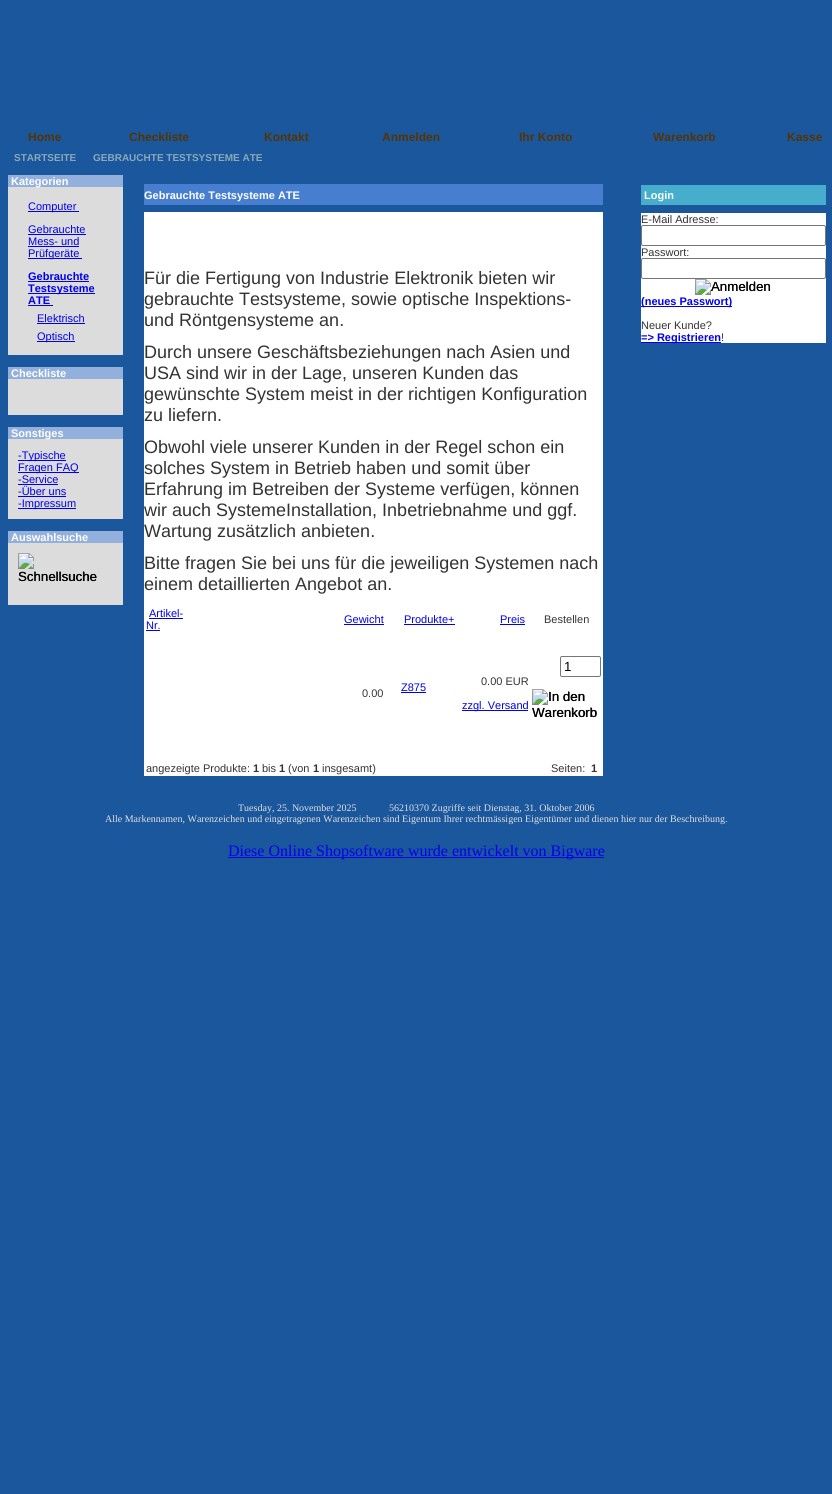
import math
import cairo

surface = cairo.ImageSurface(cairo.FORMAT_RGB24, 832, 1494)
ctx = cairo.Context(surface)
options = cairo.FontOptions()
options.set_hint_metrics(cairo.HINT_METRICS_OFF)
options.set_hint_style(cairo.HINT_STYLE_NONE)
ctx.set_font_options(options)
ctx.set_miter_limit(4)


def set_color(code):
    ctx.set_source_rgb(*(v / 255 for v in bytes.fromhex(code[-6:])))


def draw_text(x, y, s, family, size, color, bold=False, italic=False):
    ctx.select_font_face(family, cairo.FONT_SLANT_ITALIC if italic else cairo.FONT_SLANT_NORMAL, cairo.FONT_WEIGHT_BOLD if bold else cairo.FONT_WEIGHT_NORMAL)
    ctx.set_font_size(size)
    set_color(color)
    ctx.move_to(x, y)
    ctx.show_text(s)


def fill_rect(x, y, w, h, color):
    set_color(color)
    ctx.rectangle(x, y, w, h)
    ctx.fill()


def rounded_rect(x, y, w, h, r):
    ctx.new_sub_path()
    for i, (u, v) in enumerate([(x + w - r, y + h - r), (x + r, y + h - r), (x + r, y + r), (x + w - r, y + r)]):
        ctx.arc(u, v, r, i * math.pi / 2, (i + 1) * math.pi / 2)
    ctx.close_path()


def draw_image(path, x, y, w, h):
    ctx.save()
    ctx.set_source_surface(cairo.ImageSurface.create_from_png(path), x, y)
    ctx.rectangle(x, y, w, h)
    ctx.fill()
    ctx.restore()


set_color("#1b579d")
ctx.paint()
draw_text(28, 141, "Home", "Liberation Sans", 12, "#573300", bold=True)
draw_text(129, 141, "Checkliste", "Liberation Sans", 12, "#573300", bold=True)
draw_text(264, 141, "Kontakt", "Liberation Sans", 12, "#573300", bold=True)
draw_text(382, 141, "Anmelden", "Liberation Sans", 12, "#573300", bold=True)
draw_text(519, 141, "Ihr Konto", "Liberation Sans", 12, "#573300", bold=True)
draw_text(653, 141, "Warenkorb", "Liberation Sans", 12, "#573300", bold=True)
draw_text(787, 141, "Kasse", "Liberation Sans", 12, "#573300", bold=True)
draw_text(14, 161, "STARTSEITE", "Liberation Sans", 10, "#89a9b8", bold=True)
draw_text(93, 161, "GEBRAUCHTE TESTSYSTEME ATE", "Liberation Sans", 10, "#89a9b8", bold=True)
fill_rect(8, 175, 115, 12, "#93afdb")
fill_rect(8, 187, 115, 168, "#dcdcdc")
draw_text(11, 185, "Kategorien", "Liberation Sans", 11, "#ffffff", bold=True)
fill_rect(28, 211, 51, 1, "#0000ee")
draw_text(28, 210, "Computer", "Liberation Sans", 11, "#0000ee")
draw_text(28, 233, "Gebrauchte", "Liberation Sans", 11, "#0000ee")
fill_rect(28, 234, 58, 1, "#0000ee")
draw_text(28, 245, "Mess- und", "Liberation Sans", 11, "#0000ee")
fill_rect(28, 246, 51, 1, "#0000ee")
fill_rect(28, 258, 54, 1, "#0000ee")
draw_text(28, 257, "Prüfgeräte", "Liberation Sans", 11, "#0000ee")
draw_text(28, 280, "Gebrauchte", "Liberation Sans", 11, "#0000ee", bold=True)
fill_rect(28, 281, 61, 1, "#0000ee")
fill_rect(28, 293, 67, 1, "#0000ee")
draw_text(28, 292, "Testsysteme", "Liberation Sans", 11, "#0000ee", bold=True)
draw_text(28, 304, "ATE", "Liberation Sans", 11, "#0000ee", bold=True)
fill_rect(28, 305, 25, 1, "#0000ee")
draw_text(37, 322, "Elektrisch", "Liberation Sans", 11, "#0000ee")
fill_rect(37, 323, 48, 1, "#0000ee")
fill_rect(37, 341, 38, 1, "#0000ee")
draw_text(37, 340, "Optisch", "Liberation Sans", 11, "#0000ee")
fill_rect(8, 367, 115, 12, "#93afdb")
draw_text(11, 377, "Checkliste", "Liberation Sans", 11, "#ffffff", bold=True)
fill_rect(8, 379, 115, 36, "#dcdcdc")
fill_rect(8, 427, 115, 12, "#93afdb")
fill_rect(8, 439, 115, 80, "#dcdcdc")
draw_text(11, 437, "Sonstiges", "Liberation Sans", 11, "#ffffff", bold=True)
fill_rect(18, 460, 48, 1, "#0000ee")
draw_text(18, 459, "-Typische", "Liberation Sans", 11, "#0000ee")
fill_rect(18, 472, 61, 1, "#0000ee")
draw_text(18, 471, "Fragen FAQ", "Liberation Sans", 11, "#0000ee")
draw_text(18, 483, "-Service", "Liberation Sans", 11, "#0000ee")
fill_rect(18, 484, 40, 1, "#0000ee")
draw_text(18, 495, "-Über uns", "Liberation Sans", 11, "#0000ee")
fill_rect(18, 496, 48, 1, "#0000ee")
fill_rect(18, 508, 58, 1, "#0000ee")
draw_text(18, 507, "-Impressum", "Liberation Sans", 11, "#0000ee")
fill_rect(8, 531, 115, 12, "#93afdb")
draw_text(11, 541, "Auswahlsuche", "Liberation Sans", 11, "#ffffff", bold=True)
fill_rect(8, 543, 115, 62, "#dcdcdc")
draw_image("assets/img1.png", 18, 553, 79, 28)
draw_text(18, 581, "Schnellsuche", "Liberation Sans", 13.25, "#000000")
fill_rect(144, 184, 459, 21, "#477ecf")
draw_text(144, 199, "Gebrauchte Testsysteme ATE", "Liberation Sans", 11, "#ffffff", bold=True)
fill_rect(144, 212, 459, 564, "#ffffff")
draw_text(144, 284, "Für die Fertigung von Industrie Elektronik bieten wir", "Liberation Sans", 18, "#333333")
draw_text(144, 305, "gebrauchte Testsysteme, sowie optische Inspektions-", "Liberation Sans", 18, "#333333")
draw_text(144, 326, "und Röntgensysteme an.", "Liberation Sans", 18, "#333333")
draw_text(144, 358, "Durch unsere Geschäftsbeziehungen nach Asien und", "Liberation Sans", 18, "#333333")
draw_text(144, 379, "USA sind wir in der Lage, unseren Kunden das", "Liberation Sans", 18, "#333333")
draw_text(144, 400, "gewünschte System meist in der richtigen Konfiguration", "Liberation Sans", 18, "#333333")
draw_text(144, 421, "zu liefern.", "Liberation Sans", 18, "#333333")
draw_text(144, 453, "Obwohl viele unserer Kunden in der Regel schon ein", "Liberation Sans", 18, "#333333")
draw_text(144, 474, "solches System in Betrieb haben und somit über", "Liberation Sans", 18, "#333333")
draw_text(144, 495, "Erfahrung im Betreiben der Systeme verfügen, können", "Liberation Sans", 18, "#333333")
draw_text(144, 516, "wir auch SystemeInstallation, Inbetriebnahme und ggf.", "Liberation Sans", 18, "#333333")
draw_text(144, 537, "Wartung zusätzlich anbieten.", "Liberation Sans", 18, "#333333")
draw_text(144, 569, "Bitte fragen Sie bei uns für die jeweiligen Systemen nach", "Liberation Sans", 18, "#333333")
draw_text(144, 590, "einem detaillierten Angebot an.", "Liberation Sans", 18, "#333333")
draw_text(149, 617, "Artikel-", "Liberation Sans", 11, "#0000ee")
fill_rect(149, 618, 34, 1, "#0000ee")
draw_text(146, 629, "Nr.", "Liberation Sans", 11, "#0000ee")
fill_rect(146, 630, 14, 1, "#0000ee")
draw_text(344, 623, "Gewicht", "Liberation Sans", 11, "#0000ee")
fill_rect(344, 624, 40, 1, "#0000ee")
draw_text(404, 623, "Produkte+", "Liberation Sans", 11, "#0000ee")
fill_rect(404, 624, 51, 1, "#0000ee")
draw_text(500, 623, "Preis", "Liberation Sans", 11, "#0000ee")
fill_rect(500, 624, 25, 1, "#0000ee")
draw_text(544, 623, "Bestellen", "Liberation Sans", 11, "#333333")
draw_text(401, 691, "Z875", "Liberation Sans", 11, "#0000ee")
fill_rect(401, 692, 25, 1, "#0000ee")
draw_text(481, 685, "0.00 EUR", "Liberation Sans", 11, "#333333")
fill_rect(462, 710, 66, 1, "#0000ee")
draw_text(462, 709, "zzgl. Versand", "Liberation Sans", 11, "#0000ee")
rounded_rect(560.5, 656.5, 40, 20, 1.5)
set_color("#767676")
ctx.set_line_width(1)
ctx.stroke()
draw_text(564, 671, "1", "Liberation Sans", 13.25, "#000000")
draw_image("assets/img2.png", 532, 689, 65, 28)
draw_text(548, 701, "In den", "Liberation Sans", 13.25, "#000000")
draw_text(532, 717, "Warenkorb", "Liberation Sans", 13.25, "#000000")
draw_text(362, 697, "0.00", "Liberation Sans", 11, "#333333")
draw_text(146, 772, "angezeigte Produkte:", "Liberation Sans", 11, "#333333")
draw_text(253, 772, "1", "Liberation Sans", 11, "#333333", bold=True)
draw_text(262, 772, "bis", "Liberation Sans", 11, "#333333")
draw_text(279, 772, "1", "Liberation Sans", 11, "#333333", bold=True)
draw_text(288, 772, "(von", "Liberation Sans", 11, "#333333")
draw_text(313, 772, "1", "Liberation Sans", 11, "#333333", bold=True)
draw_text(322, 772, "insgesamt)", "Liberation Sans", 11, "#333333")
draw_text(551, 772, "Seiten:", "Liberation Sans", 11, "#333333")
draw_text(591, 772, "1", "Liberation Sans", 11, "#333333", bold=True)
fill_rect(641, 185, 185, 20, "#46adcd")
draw_text(644, 199, "Login", "Liberation Sans", 11, "#ffffff", bold=True)
fill_rect(641, 213, 185, 130, "#ffffff")
draw_text(641, 223, "E-Mail Adresse:", "Liberation Sans", 11, "#333333")
rounded_rect(641.5, 225.5, 184, 20, 1.5)
set_color("#767676")
ctx.stroke()
draw_text(641, 256, "Passwort:", "Liberation Sans", 11, "#333333")
rounded_rect(641.5, 258.5, 184, 20, 1.5)
set_color("#767676")
ctx.stroke()
draw_image("assets/img3.png", 695, 279, 76, 16)
draw_text(711, 291, "Anmelden", "Liberation Sans", 13.25, "#000000")
fill_rect(641, 306, 91, 1, "#0000ee")
draw_text(641, 305, "(neues Passwort)", "Liberation Sans", 11, "#0000ee", bold=True)
draw_text(641, 329, "Neuer Kunde?", "Liberation Sans", 11, "#333333")
fill_rect(641, 342, 80, 1, "#0000ee")
draw_text(641, 341, "=> Registrieren", "Liberation Sans", 11, "#0000ee", bold=True)
draw_text(721, 341, "!", "Liberation Sans", 11, "#333333")
draw_text(238, 811, "Tuesday, 25. November 2025             56210370 Zugriffe seit Dienstag, 31. Oktober 2006", "Liberation Serif", 10, "#dfdfdf")
draw_text(105, 822, "Alle Markennamen, Warenzeichen und eingetragenen Warenzeichen sind Eigentum Ihrer rechtmässigen Eigentümer und dienen hier nur der Beschreibung.", "Liberation Serif", 10, "#dfdfdf")
fill_rect(228, 857, 376, 1, "#0000ee")
draw_text(228, 856, "Diese Online Shopsoftware wurde entwickelt von Bigware", "Liberation Serif", 16, "#0000ee")
surface.write_to_png("output.png")
